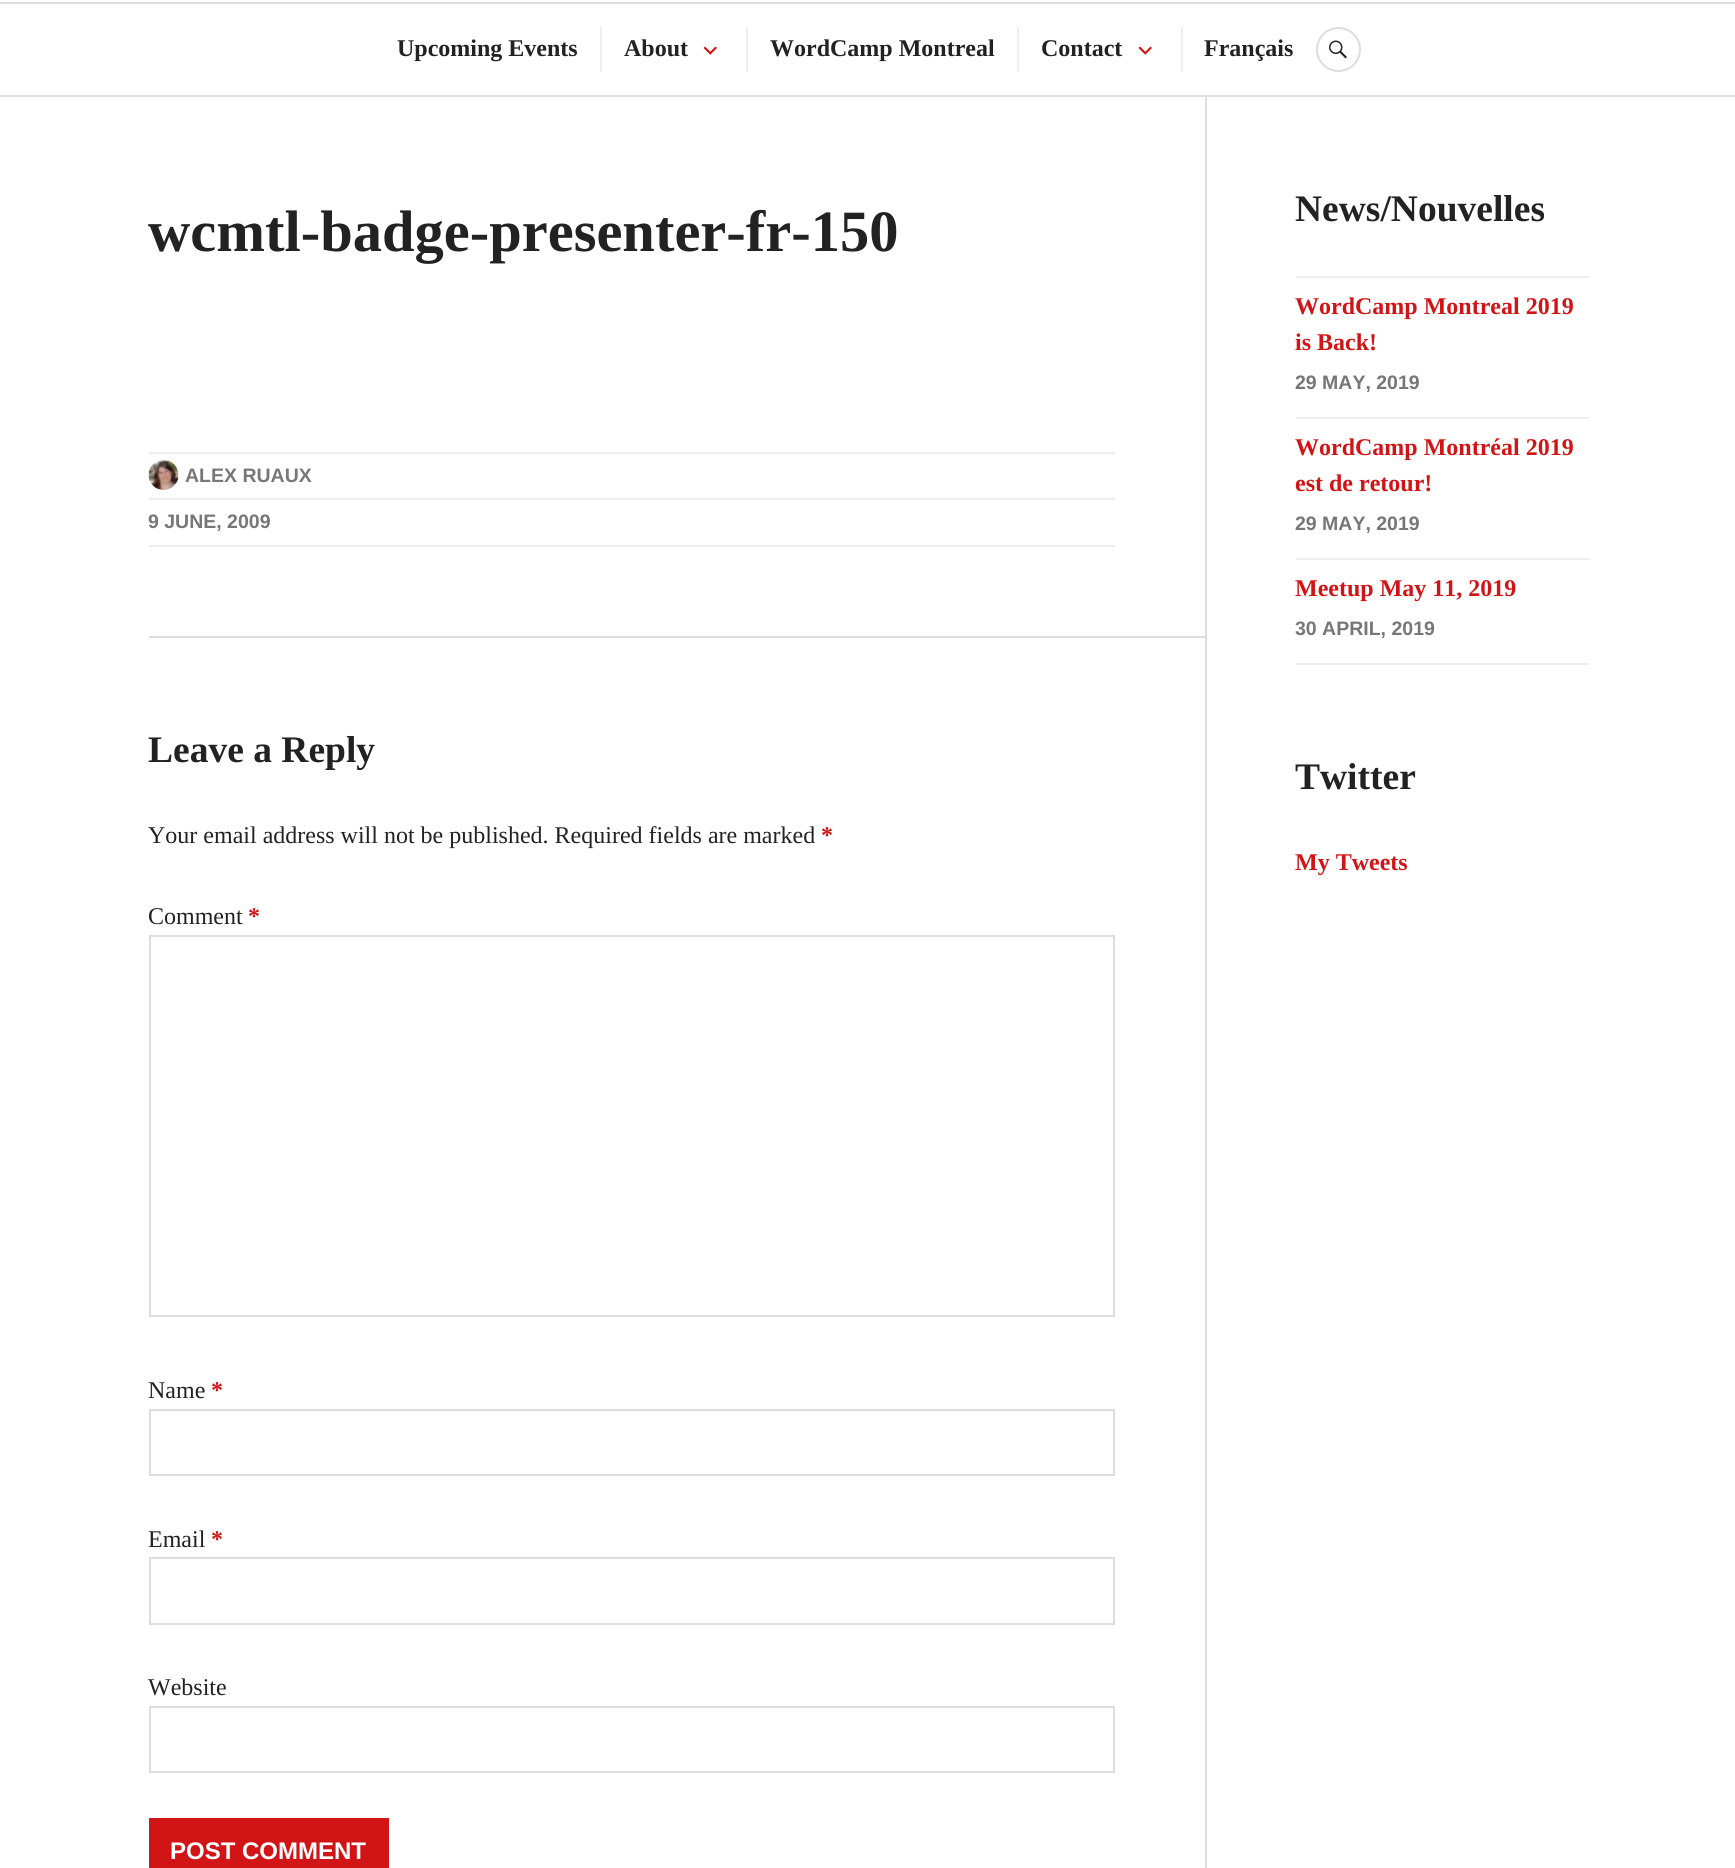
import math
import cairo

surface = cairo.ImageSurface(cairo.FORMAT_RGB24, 1735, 1868)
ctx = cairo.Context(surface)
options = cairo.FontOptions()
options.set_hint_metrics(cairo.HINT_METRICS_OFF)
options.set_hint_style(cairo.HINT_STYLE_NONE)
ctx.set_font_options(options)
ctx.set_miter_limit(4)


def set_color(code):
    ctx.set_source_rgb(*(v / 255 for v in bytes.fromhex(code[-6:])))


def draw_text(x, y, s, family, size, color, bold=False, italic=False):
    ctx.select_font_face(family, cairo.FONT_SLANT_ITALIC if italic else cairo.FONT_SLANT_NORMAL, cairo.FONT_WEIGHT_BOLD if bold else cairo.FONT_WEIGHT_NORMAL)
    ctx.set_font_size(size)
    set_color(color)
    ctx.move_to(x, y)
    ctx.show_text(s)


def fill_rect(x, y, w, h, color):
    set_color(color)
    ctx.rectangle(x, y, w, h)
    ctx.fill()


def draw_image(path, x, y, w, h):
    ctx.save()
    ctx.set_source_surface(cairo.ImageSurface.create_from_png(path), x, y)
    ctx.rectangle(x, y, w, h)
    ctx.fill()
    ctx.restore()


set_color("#ffffff")
ctx.paint()
fill_rect(1205, 96, 2, 1772, "#dddddd")
fill_rect(0, 95, 1735, 2, "#dddddd")
fill_rect(0, 2, 1735, 2, "#dddddd")
draw_text(397, 56, "Upcoming Events", "Liberation Serif", 24, "#222222", bold=True)
fill_rect(600, 27, 2, 45, "#eeeeee")
draw_text(624, 56, "About", "Liberation Serif", 24, "#222222", bold=True)
draw_image("assets/img1.png", 703, 46, 14, 9)
fill_rect(746, 27, 2, 45, "#eeeeee")
draw_text(770, 56, "WordCamp Montreal", "Liberation Serif", 24, "#222222", bold=True)
fill_rect(1017, 27, 2, 45, "#eeeeee")
draw_text(1041, 56, "Contact", "Liberation Serif", 24, "#222222", bold=True)
draw_image("assets/img1.png", 1138, 46, 14, 9)
fill_rect(1181, 27, 2, 45, "#eeeeee")
draw_text(1204, 56, "Français", "Liberation Serif", 24, "#222222", bold=True)
ctx.new_path()
ctx.arc(1338.5, 49.5, 21.5, 0, 2 * math.pi)
set_color("#dddddd")
ctx.stroke()
draw_image("assets/img2.png", 1329, 40, 18, 19)
draw_text(148, 251, "wcmtl-badge-presenter-fr-150", "Liberation Serif", 58.5, "#222222", bold=True)
fill_rect(149, 452, 966, 2, "#eeeeee")
draw_image("assets/img3.png", 148, 460, 31, 30)
draw_text(185, 482, "ALEX RUAUX", "Liberation Sans", 19.5, "#777777", bold=True)
fill_rect(149, 498, 966, 2, "#eeeeee")
fill_rect(149, 545, 966, 2, "#eeeeee")
draw_text(148, 528, "9 JUNE, 2009", "Liberation Sans", 19.5, "#777777", bold=True)
fill_rect(149, 636, 1056, 2, "#dddddd")
draw_text(148, 762, "Leave a Reply", "Liberation Serif", 37.5, "#222222", bold=True)
draw_text(148, 843, "Your email address will not be published. Required fields are marked", "Liberation Serif", 24, "#222222")
draw_text(821, 843, "*", "Liberation Serif", 24, "#d11415", bold=True)
draw_text(148, 924, "Comment", "Liberation Serif", 24, "#222222")
draw_text(248, 924, "*", "Liberation Serif", 24, "#d11415", bold=True)
ctx.rectangle(150, 936, 964, 380)
set_color("#dddddd")
ctx.stroke()
draw_text(148, 1398, "Name", "Liberation Serif", 24, "#222222")
draw_text(211, 1398, "*", "Liberation Serif", 24, "#d11415", bold=True)
ctx.rectangle(150, 1410, 964, 65)
set_color("#dddddd")
ctx.stroke()
draw_text(148, 1547, "Email", "Liberation Serif", 24, "#222222")
draw_text(211, 1547, "*", "Liberation Serif", 24, "#d11415", bold=True)
ctx.rectangle(150, 1558, 964, 66)
set_color("#dddddd")
ctx.stroke()
draw_text(148, 1695, "Website", "Liberation Serif", 24, "#222222")
ctx.rectangle(150, 1707, 964, 65)
set_color("#dddddd")
ctx.stroke()
fill_rect(149, 1818, 240, 50, "#d11415")
draw_text(170, 1859, "POST COMMENT", "Liberation Sans", 24, "#ffffff", bold=True)
draw_text(1295, 221, "News/Nouvelles", "Liberation Serif", 37.5, "#222222", bold=True)
fill_rect(1296, 663, 293, 2, "#eeeeee")
fill_rect(1296, 276, 293, 2, "#eeeeee")
draw_text(1295, 314, "WordCamp Montreal 2019", "Liberation Serif", 24, "#d11415", bold=True)
draw_text(1295, 350, "is Back!", "Liberation Serif", 24, "#d11415", bold=True)
draw_text(1295, 389, "29 MAY, 2019", "Liberation Sans", 19.5, "#777777", bold=True)
fill_rect(1296, 417, 293, 2, "#eeeeee")
draw_text(1295, 455, "WordCamp Montréal 2019", "Liberation Serif", 24, "#d11415", bold=True)
draw_text(1295, 491, "est de retour!", "Liberation Serif", 24, "#d11415", bold=True)
draw_text(1295, 530, "29 MAY, 2019", "Liberation Sans", 19.5, "#777777", bold=True)
fill_rect(1296, 558, 293, 2, "#eeeeee")
draw_text(1295, 596, "Meetup May 11, 2019", "Liberation Serif", 24, "#d11415", bold=True)
draw_text(1295, 635, "30 APRIL, 2019", "Liberation Sans", 19.5, "#777777", bold=True)
draw_text(1295, 789, "Twitter", "Liberation Serif", 37.5, "#222222", bold=True)
draw_text(1295, 870, "My Tweets", "Liberation Serif", 24, "#d11415", bold=True)
surface.write_to_png("output.png")
